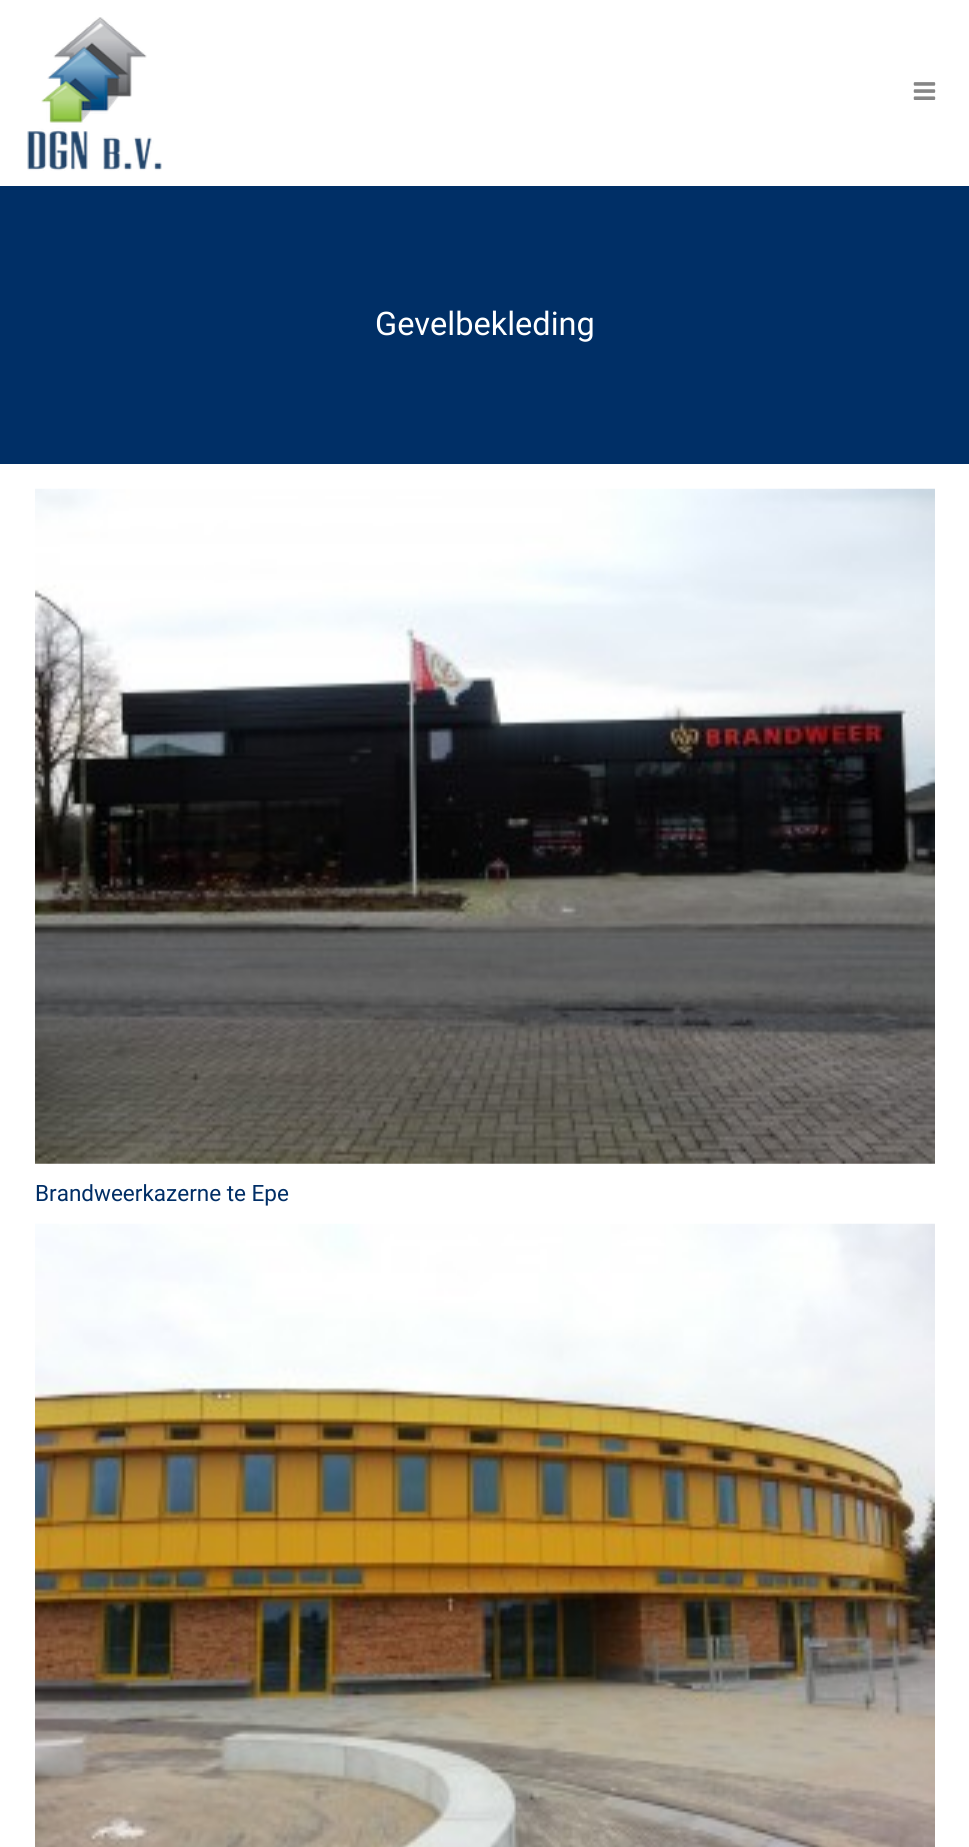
import math
import cairo

surface = cairo.ImageSurface(cairo.FORMAT_RGB24, 969, 1847)
ctx = cairo.Context(surface)
options = cairo.FontOptions()
options.set_hint_metrics(cairo.HINT_METRICS_OFF)
options.set_hint_style(cairo.HINT_STYLE_NONE)
ctx.set_font_options(options)
ctx.set_miter_limit(4)


def set_color(code):
    ctx.set_source_rgb(*(v / 255 for v in bytes.fromhex(code[-6:])))


def draw_text(x, y, s, family, size, color, bold=False, italic=False):
    ctx.select_font_face(family, cairo.FONT_SLANT_ITALIC if italic else cairo.FONT_SLANT_NORMAL, cairo.FONT_WEIGHT_BOLD if bold else cairo.FONT_WEIGHT_NORMAL)
    ctx.set_font_size(size)
    set_color(color)
    ctx.move_to(x, y)
    ctx.show_text(s)


def fill_rect(x, y, w, h, color):
    set_color(color)
    ctx.rectangle(x, y, w, h)
    ctx.fill()


def draw_image(path, x, y, w, h):
    ctx.save()
    ctx.set_source_surface(cairo.ImageSurface.create_from_png(path), x, y)
    ctx.rectangle(x, y, w, h)
    ctx.fill()
    ctx.restore()


set_color("#ffffff")
ctx.paint()
draw_image("assets/img1.png", 27, 17, 135, 154)
draw_image("assets/img2.png", 913, 82, 23, 18)
fill_rect(0, 186, 969, 278, "#002f66")
draw_text(375, 335, "Gevelbekleding", "Roboto", 32.5, "#ffffff")
draw_image("assets/img3.png", 35, 488, 900, 676)
draw_text(35, 1201, "Brandweerkazerne te Epe", "Roboto", 22.5, "#002e66")
draw_image("assets/img4.png", 35, 1223, 900, 624)
surface.write_to_png("output.png")
